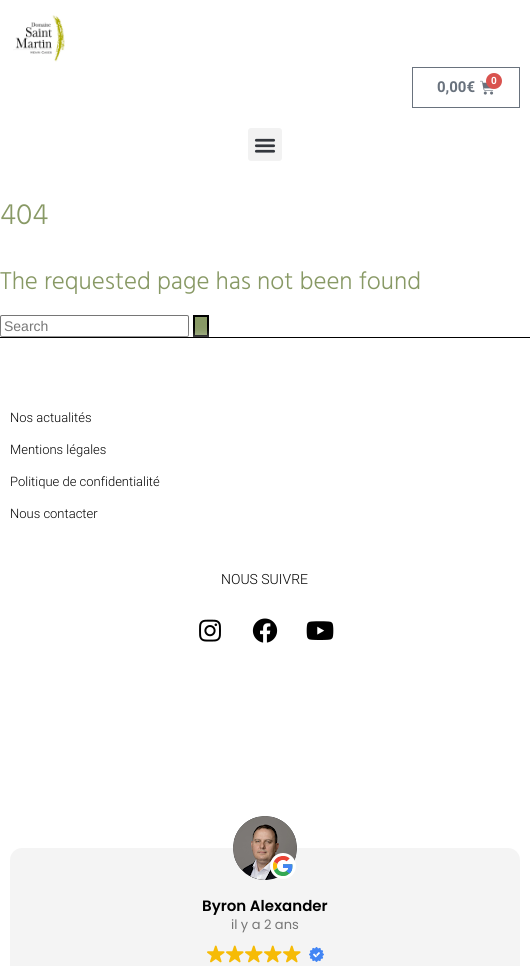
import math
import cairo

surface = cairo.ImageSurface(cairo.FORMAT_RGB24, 530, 966)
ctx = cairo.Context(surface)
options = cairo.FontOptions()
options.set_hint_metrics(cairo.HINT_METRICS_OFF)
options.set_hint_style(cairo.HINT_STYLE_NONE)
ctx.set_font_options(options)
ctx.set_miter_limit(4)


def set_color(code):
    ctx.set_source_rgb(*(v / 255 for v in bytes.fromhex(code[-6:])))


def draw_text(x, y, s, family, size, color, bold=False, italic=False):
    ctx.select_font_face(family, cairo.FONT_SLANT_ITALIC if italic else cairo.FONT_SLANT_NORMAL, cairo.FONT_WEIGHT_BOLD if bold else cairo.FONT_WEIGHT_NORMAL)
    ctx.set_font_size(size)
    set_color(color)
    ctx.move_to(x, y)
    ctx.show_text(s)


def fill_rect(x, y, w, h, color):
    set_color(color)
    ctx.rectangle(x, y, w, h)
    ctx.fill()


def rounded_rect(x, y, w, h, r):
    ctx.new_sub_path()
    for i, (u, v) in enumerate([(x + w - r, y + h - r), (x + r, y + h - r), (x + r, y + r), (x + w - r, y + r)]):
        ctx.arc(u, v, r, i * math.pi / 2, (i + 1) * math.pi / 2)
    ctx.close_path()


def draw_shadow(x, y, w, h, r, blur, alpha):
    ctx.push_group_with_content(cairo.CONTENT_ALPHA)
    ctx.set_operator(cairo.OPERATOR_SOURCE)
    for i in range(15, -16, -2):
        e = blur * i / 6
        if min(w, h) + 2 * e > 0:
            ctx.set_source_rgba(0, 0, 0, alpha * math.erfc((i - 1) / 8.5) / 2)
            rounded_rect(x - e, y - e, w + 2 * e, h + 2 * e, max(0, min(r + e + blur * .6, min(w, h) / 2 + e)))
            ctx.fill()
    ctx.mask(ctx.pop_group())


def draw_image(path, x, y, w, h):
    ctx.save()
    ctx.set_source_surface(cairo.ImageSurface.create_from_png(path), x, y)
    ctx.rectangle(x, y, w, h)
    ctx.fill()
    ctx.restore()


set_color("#ffffff")
ctx.paint()
draw_image("assets/img1.png", 13, 15, 52, 47)
ctx.rectangle(412.5, 67.5, 107, 40)
set_color("#69727d")
ctx.set_line_width(1)
ctx.stroke()
draw_text(437, 92, "0,00€", "Roboto", 15, "#69727d", bold=True)
draw_image("assets/img2.png", 480, 80, 14, 15)
set_color("#d9534f")
ctx.arc(494, 81, 8, 0, 2 * math.pi)
ctx.fill()
draw_text(491, 84, "0", "Roboto", 10, "#ffffff", bold=True)
set_color("#f2f2f2")
rounded_rect(248, 128, 34, 33, 3)
ctx.fill()
draw_image("assets/img3.png", 254, 138, 22, 15)
draw_text(0, 224, "404", "Hind Light", 30, "#889965")
draw_text(0, 289, "The requested page has not been found", "Hind Light", 25, "#889965")
rounded_rect(0.5, 315.5, 188, 21, 1.5)
set_color("#767676")
ctx.stroke()
draw_text(4, 331, "Search", "Liberation Sans", 14, "#757575")
set_color("#889965")
ctx.rectangle(194, 316, 14, 20)
ctx.fill_preserve()
set_color("#000000")
ctx.set_line_width(2)
ctx.stroke()
ctx.save()
ctx.set_fill_rule(cairo.FILL_RULE_EVEN_ODD)
ctx.new_path()
ctx.move_to(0, 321)
ctx.line_to(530, 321)
ctx.line_to(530, 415)
ctx.line_to(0, 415)
ctx.close_path()
ctx.move_to(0, 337)
ctx.line_to(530, 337)
ctx.line_to(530, 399)
ctx.line_to(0, 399)
ctx.close_path()
ctx.clip()
set_color("#ffffff")
draw_shadow(0, 337, 530, 62, 0, 5, 0.5)
ctx.restore()
fill_rect(0, 337, 530, 1, "#000000")
draw_text(10, 422, "Nos actualités", "Roboto Light", 13, "#000000")
draw_text(10, 454, "Mentions légales", "Roboto Light", 13, "#000000")
draw_text(10, 486, "Politique de confidentialité", "Roboto Light", 13, "#000000")
draw_text(10, 518, "Nous contacter", "Roboto Light", 13, "#000000")
draw_text(221, 584, "NOUS SUIVRE", "Roboto Light", 14, "#000000")
draw_image("assets/img4.png", 199, 619, 22, 23)
draw_image("assets/img5.png", 252, 618, 26, 25)
draw_image("assets/img6.png", 306, 621, 28, 19)
set_color("#f4f4f4")
rounded_rect(10, 848, 510, 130, 12)
ctx.fill()
draw_image("assets/img7.png", 233, 816, 64, 64)
set_color("#ffffff")
ctx.arc(283, 866, 12, 0, 2 * math.pi)
ctx.fill_preserve()
ctx.stroke()
draw_image("assets/img8.png", 273, 856, 20, 20)
draw_text(202, 911, "Byron Alexander", "Poppins SemiBold", 15, "#000000")
draw_text(231, 929, "il y a 2 ans", "Poppins", 13, "#757575")
draw_image("assets/img9.png", 207, 945, 18, 18)
draw_image("assets/img9.png", 226, 945, 18, 18)
draw_image("assets/img9.png", 245, 945, 18, 18)
draw_image("assets/img9.png", 264, 945, 18, 18)
draw_image("assets/img9.png", 283, 945, 18, 18)
draw_image("assets/img10.png", 309, 947, 15, 15)
surface.write_to_png("output.png")
